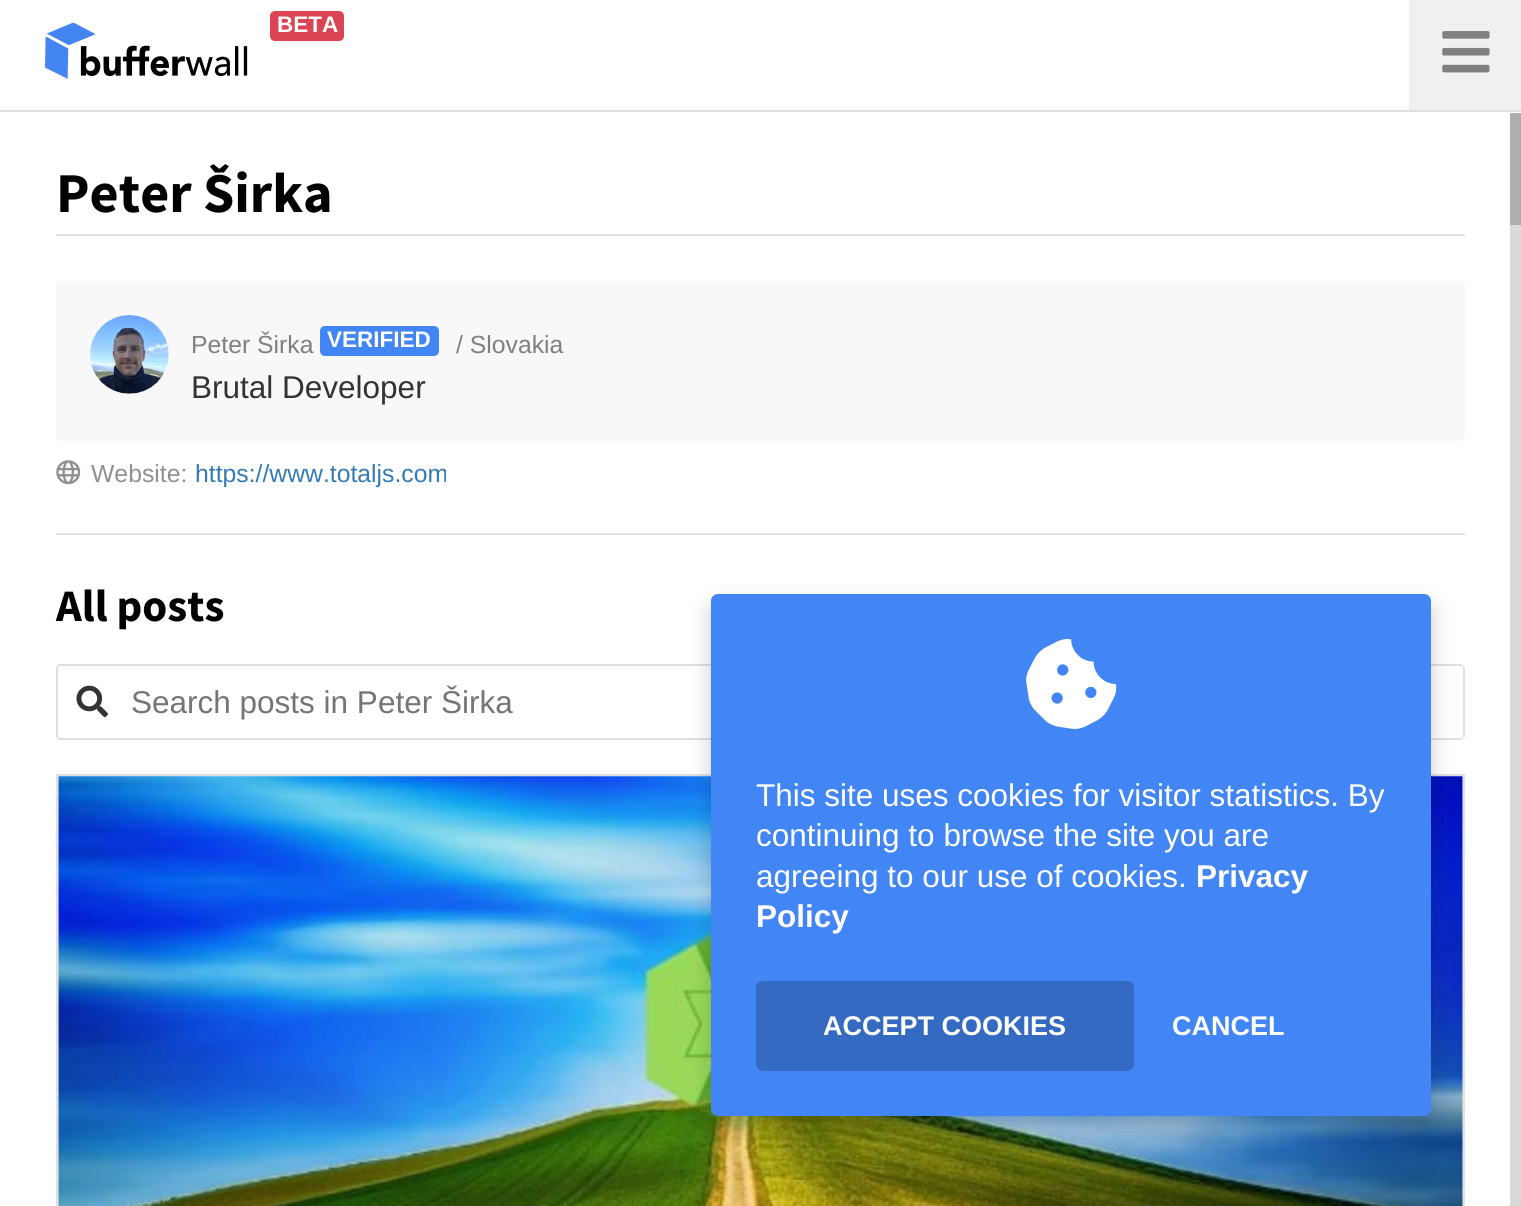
import math
import cairo

surface = cairo.ImageSurface(cairo.FORMAT_RGB24, 1521, 1206)
ctx = cairo.Context(surface)
options = cairo.FontOptions()
options.set_hint_metrics(cairo.HINT_METRICS_OFF)
options.set_hint_style(cairo.HINT_STYLE_NONE)
ctx.set_font_options(options)
ctx.set_miter_limit(4)


def set_color(code):
    ctx.set_source_rgb(*(v / 255 for v in bytes.fromhex(code[-6:])))


def draw_text(x, y, s, family, size, color, bold=False, italic=False):
    ctx.select_font_face(family, cairo.FONT_SLANT_ITALIC if italic else cairo.FONT_SLANT_NORMAL, cairo.FONT_WEIGHT_BOLD if bold else cairo.FONT_WEIGHT_NORMAL)
    ctx.set_font_size(size)
    set_color(color)
    ctx.move_to(x, y)
    ctx.show_text(s)


def fill_rect(x, y, w, h, color):
    set_color(color)
    ctx.rectangle(x, y, w, h)
    ctx.fill()


def rounded_rect(x, y, w, h, r):
    ctx.new_sub_path()
    for i, (u, v) in enumerate([(x + w - r, y + h - r), (x + r, y + h - r), (x + r, y + r), (x + w - r, y + r)]):
        ctx.arc(u, v, r, i * math.pi / 2, (i + 1) * math.pi / 2)
    ctx.close_path()


def draw_shadow(x, y, w, h, r, blur, alpha):
    ctx.push_group_with_content(cairo.CONTENT_ALPHA)
    ctx.set_operator(cairo.OPERATOR_SOURCE)
    for i in range(15, -16, -2):
        e = blur * i / 6
        if min(w, h) + 2 * e > 0:
            ctx.set_source_rgba(0, 0, 0, alpha * math.erfc((i - 1) / 8.5) / 2)
            rounded_rect(x - e, y - e, w + 2 * e, h + 2 * e, max(0, min(r + e + blur * .6, min(w, h) / 2 + e)))
            ctx.fill()
    ctx.mask(ctx.pop_group())


def draw_image(path, x, y, w, h):
    ctx.save()
    ctx.set_source_surface(cairo.ImageSurface.create_from_png(path), x, y)
    ctx.rectangle(x, y, w, h)
    ctx.fill()
    ctx.restore()


set_color("#ffffff")
ctx.paint()
fill_rect(0, 110, 1521, 2, "#e0e0e0")
draw_image("assets/img1.png", 45, 23, 203, 56)
set_color("#da4453")
rounded_rect(270, 11, 74, 30, 5)
ctx.fill()
draw_text(277, 32, "BETA", "Liberation Sans", 22.5, "#ffffff", bold=True)
fill_rect(1409, 0, 112, 110, "#f0f0f0")
draw_image("assets/img2.png", 1442, 31, 48, 42)
fill_rect(56, 234, 1409, 2, "#e0e0e0")
draw_text(56, 212, "Peter Širka", "Source Sans Pro", 56.25, "#000000", bold=True)
set_color("#f8f8f8")
rounded_rect(56, 281, 1409, 160, 5)
ctx.fill()
draw_image("assets/img3.png", 90, 315, 79, 79)
draw_text(191, 353, "Peter Širka", "Liberation Sans", 24.75, "#808080")
set_color("#4285f4")
rounded_rect(320, 326, 119, 30, 5)
ctx.fill()
draw_text(327, 347, "VERIFIED", "Liberation Sans", 22.5, "#ffffff", bold=True)
draw_text(456, 353, "/ Slovakia", "Liberation Sans", 24.75, "#808080")
draw_text(191, 398, "Brutal Developer", "Liberation Sans", 31.5, "#333333")
draw_image("assets/img4.png", 56, 460, 25, 25)
draw_text(91, 482, "Website:", "Liberation Sans", 24.75, "#909090")
draw_text(195, 482, "https://www.totaljs.com", "Liberation Sans", 24.75, "#337ab7")
fill_rect(56, 533, 1409, 2, "#e0e0e0")
draw_text(56, 621, "All posts", "Source Sans Pro", 45, "#000000", bold=True)
rounded_rect(57, 665, 1407, 74, 4)
set_color("#e0e0e0")
ctx.stroke()
draw_image("assets/img5.png", 76, 685, 32, 33)
fill_rect(1460, 666, 3, 72, "#ffffff")
draw_text(131, 713, "Search posts in Peter Širka", "Liberation Sans", 31.5, "#757575")
set_color("#f8f8f8")
ctx.rectangle(57, 775, 1407, 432)
ctx.fill_preserve()
set_color("#e0e0e0")
ctx.stroke()
draw_image("assets/img6.png", 58, 776, 1405, 430)
fill_rect(1510, 225, 11, 981, "#d9d9d9")
fill_rect(1510, 113, 11, 112, "#aeaeae")
set_color("#000000")
draw_shadow(711, 605, 720, 522, 7, 11, 0.2)
set_color("#4285f4")
rounded_rect(711, 594, 720, 522, 7)
ctx.fill()
draw_image("assets/img7.png", 1026, 639, 91, 90)
draw_text(756, 806, "This site uses cookies for visitor statistics. By", "Liberation Sans", 31.5, "#ffffff")
draw_text(756, 846, "continuing to browse the site you are", "Liberation Sans", 31.5, "#ffffff")
draw_text(756, 887, "agreeing to our use of cookies.", "Liberation Sans", 31.5, "#ffffff")
draw_text(1196, 887, "Privacy", "Liberation Sans", 31.5, "#ffffff", bold=True)
draw_text(756, 927, "Policy", "Liberation Sans", 31.5, "#ffffff", bold=True)
set_color("#356ac3")
rounded_rect(756, 981, 378, 90, 7)
ctx.fill()
draw_text(823, 1035, "ACCEPT COOKIES", "Liberation Sans", 27, "#ffffff", bold=True)
draw_text(1172, 1035, "CANCEL", "Liberation Sans", 27, "#ffffff", bold=True)
surface.write_to_png("output.png")
